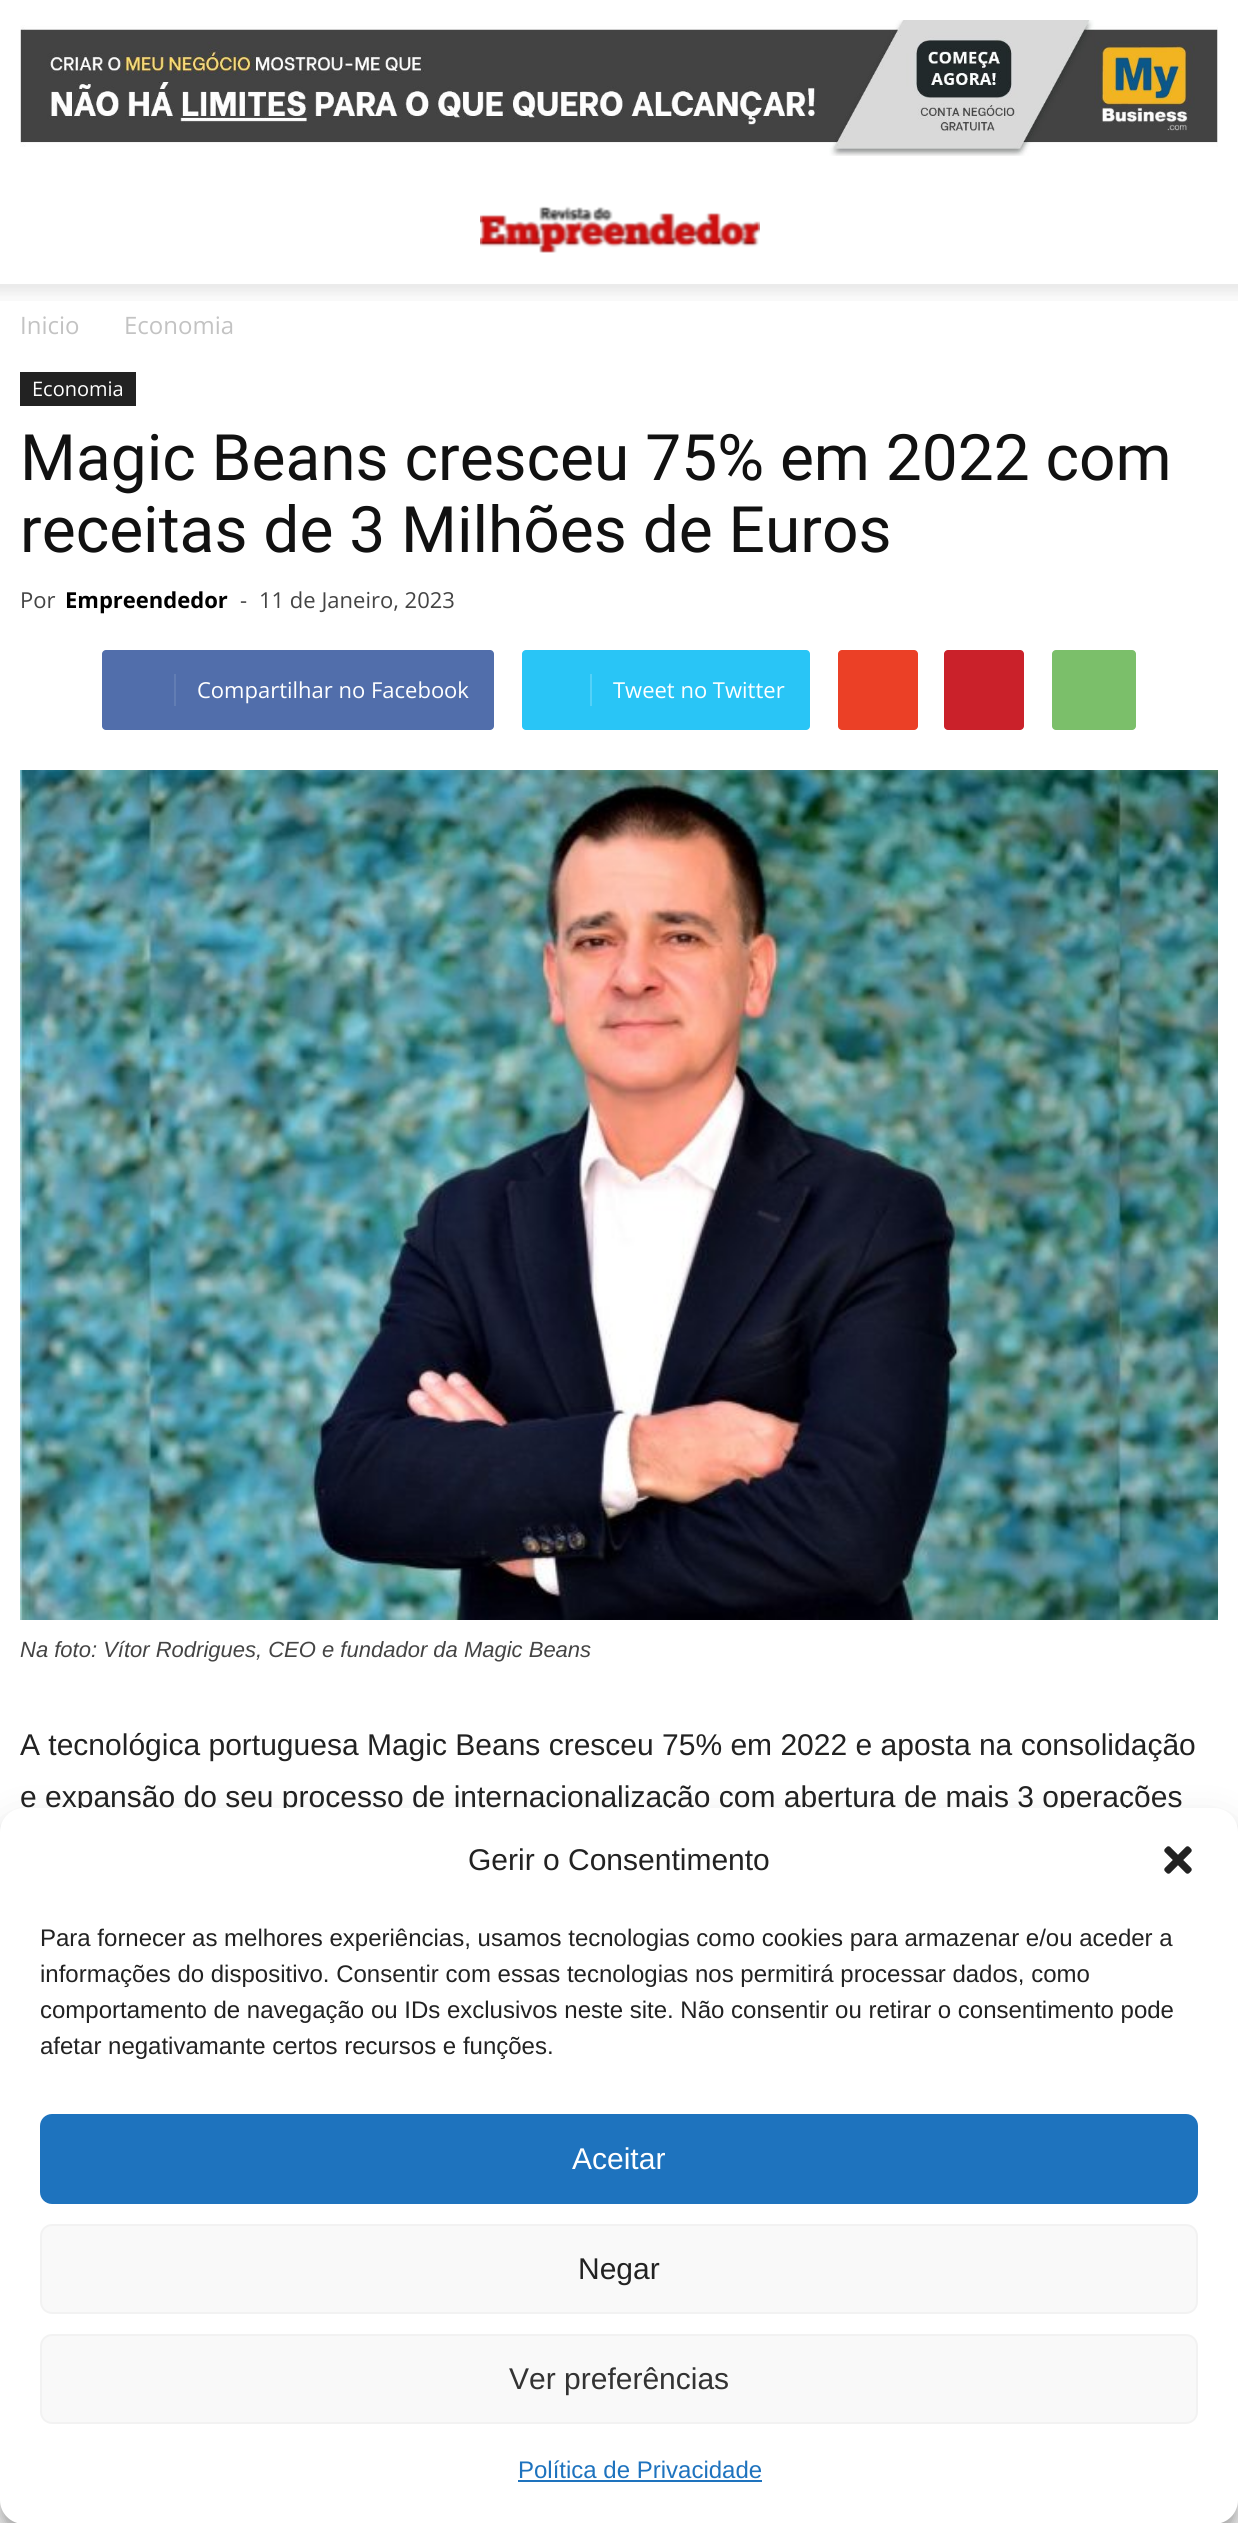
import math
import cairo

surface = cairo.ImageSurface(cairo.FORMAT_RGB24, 1238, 2523)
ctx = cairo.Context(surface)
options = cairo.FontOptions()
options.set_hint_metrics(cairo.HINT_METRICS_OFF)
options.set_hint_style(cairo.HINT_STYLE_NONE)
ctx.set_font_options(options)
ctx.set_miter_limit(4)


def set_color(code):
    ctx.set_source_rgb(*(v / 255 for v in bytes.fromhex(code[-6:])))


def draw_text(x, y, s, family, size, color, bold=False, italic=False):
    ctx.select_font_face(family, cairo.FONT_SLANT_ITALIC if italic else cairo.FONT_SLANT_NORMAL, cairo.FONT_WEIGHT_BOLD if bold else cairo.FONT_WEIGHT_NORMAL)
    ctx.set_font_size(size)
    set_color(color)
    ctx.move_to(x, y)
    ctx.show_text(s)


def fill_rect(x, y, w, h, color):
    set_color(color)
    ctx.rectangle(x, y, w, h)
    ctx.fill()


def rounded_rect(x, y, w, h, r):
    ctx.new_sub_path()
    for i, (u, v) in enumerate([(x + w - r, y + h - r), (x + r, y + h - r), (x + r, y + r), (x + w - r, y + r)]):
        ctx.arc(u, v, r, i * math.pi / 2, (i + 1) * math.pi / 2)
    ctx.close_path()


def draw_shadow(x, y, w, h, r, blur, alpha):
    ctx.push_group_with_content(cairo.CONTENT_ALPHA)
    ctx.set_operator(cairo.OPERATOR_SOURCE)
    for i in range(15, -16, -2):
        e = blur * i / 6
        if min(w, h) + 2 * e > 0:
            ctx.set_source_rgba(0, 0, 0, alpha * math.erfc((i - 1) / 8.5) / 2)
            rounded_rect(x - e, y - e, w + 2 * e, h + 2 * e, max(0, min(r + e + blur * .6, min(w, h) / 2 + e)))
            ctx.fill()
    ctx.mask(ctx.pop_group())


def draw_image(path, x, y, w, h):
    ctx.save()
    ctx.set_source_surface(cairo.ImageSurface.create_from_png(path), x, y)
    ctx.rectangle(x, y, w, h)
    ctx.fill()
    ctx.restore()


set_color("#ffffff")
ctx.paint()
draw_image("assets/img1.png", 20, 20, 1198, 136)
draw_image("assets/img2.png", 480, 206, 280, 47)
draw_image("assets/img3.png", 0, 284, 1238, 17)
draw_text(20, 334, "Inicio", "Open Sans", 24, "#c3c3c3")
draw_text(124, 334, "Economia", "Open Sans", 24, "#c3c3c3")
fill_rect(20, 372, 116, 34, "#222222")
draw_text(32, 396, "Economia", "Open Sans", 20, "#ffffff")
draw_text(20, 480, "Magic Beans cresceu 75% em 2022 com", "Roboto", 64, "#111111")
draw_text(20, 552, "receitas de 3 Milhões de Euros", "Roboto", 64, "#111111")
draw_text(20, 608, "Por", "Open Sans", 22, "#444444")
draw_text(65, 608, "Empreendedor", "Open Sans", 22, "#000000", bold=True)
draw_text(240, 608, "-", "Open Sans", 22, "#444444")
draw_text(259, 608, "11 de Janeiro, 2023", "Open Sans", 22, "#444444")
set_color("#516eab")
rounded_rect(102, 650, 392, 80, 4)
ctx.fill()
fill_rect(174, 674, 2, 32, "#627db3")
draw_text(197, 698, "Compartilhar no Facebook", "Open Sans", 22, "#ffffff")
set_color("#29c5f6")
rounded_rect(522, 650, 288, 80, 4)
ctx.fill()
fill_rect(590, 674, 2, 32, "#54d1f8")
draw_text(613, 698, "Tweet no Twitter", "Open Sans", 22, "#ffffff")
set_color("#eb4026")
rounded_rect(838, 650, 80, 80, 4)
ctx.fill()
set_color("#ca212a")
rounded_rect(944, 650, 80, 80, 4)
ctx.fill()
set_color("#7bbf6a")
rounded_rect(1052, 650, 84, 80, 4)
ctx.fill()
draw_image("assets/img4.png", 20, 770, 1198, 850)
draw_text(20, 1657, "Na foto: Vítor Rodrigues, CEO e fundador da Magic Beans", "Liberation Sans", 22, "#444444", italic=True)
draw_text(20, 1755, "A tecnológica portuguesa Magic Beans cresceu 75% em 2022 e aposta na consolidação", "Liberation Sans", 30, "#222222")
draw_text(20, 1807, "e expansão do seu processo de internacionalização com abertura de mais 3 operações", "Liberation Sans", 30, "#222222")
set_color("#000000")
draw_shadow(0, 1820, 1238, 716, 24, 6, 0.23)
draw_shadow(0, 1828, 1238, 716, 24, 20, 0.19)
set_color("#ffffff")
rounded_rect(0, 1808, 1238, 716, 24)
ctx.fill()
draw_text(468, 1870, "Gerir o Consentimento", "Liberation Sans", 30, "#222222")
draw_image("assets/img5.png", 1164, 1846, 28, 28)
draw_text(40, 1946, "Para fornecer as melhores experiências, usamos tecnologias como cookies para armazenar e/ou aceder a", "Liberation Sans", 24, "#222222")
draw_text(40, 1982, "informações do dispositivo. Consentir com essas tecnologias nos permitirá processar dados, como", "Liberation Sans", 24, "#222222")
draw_text(40, 2018, "comportamento de navegação ou IDs exclusivos neste site. Não consentir ou retirar o consentimento pode", "Liberation Sans", 24, "#222222")
draw_text(40, 2054, "afetar negativamante certos recursos e funções.", "Liberation Sans", 24, "#222222")
set_color("#1e73be")
rounded_rect(41, 2115, 1156, 88, 11)
ctx.fill_preserve()
ctx.stroke()
draw_text(572, 2169, "Aceitar", "Liberation Sans", 30, "#ffffff")
set_color("#f9f9f9")
rounded_rect(41, 2225, 1156, 88, 11)
ctx.fill_preserve()
set_color("#f2f2f2")
ctx.stroke()
draw_text(578, 2279, "Negar", "Liberation Sans", 30, "#222222")
set_color("#f9f9f9")
rounded_rect(41, 2335, 1156, 88, 11)
ctx.fill_preserve()
set_color("#f2f2f2")
ctx.stroke()
draw_text(509, 2389, "Ver preferências", "Liberation Sans", 30, "#333333")
draw_text(518, 2478, "Política de Privacidade", "Liberation Sans", 24, "#1e73be")
fill_rect(518, 2480, 244, 2, "#1e73be")
surface.write_to_png("output.png")
